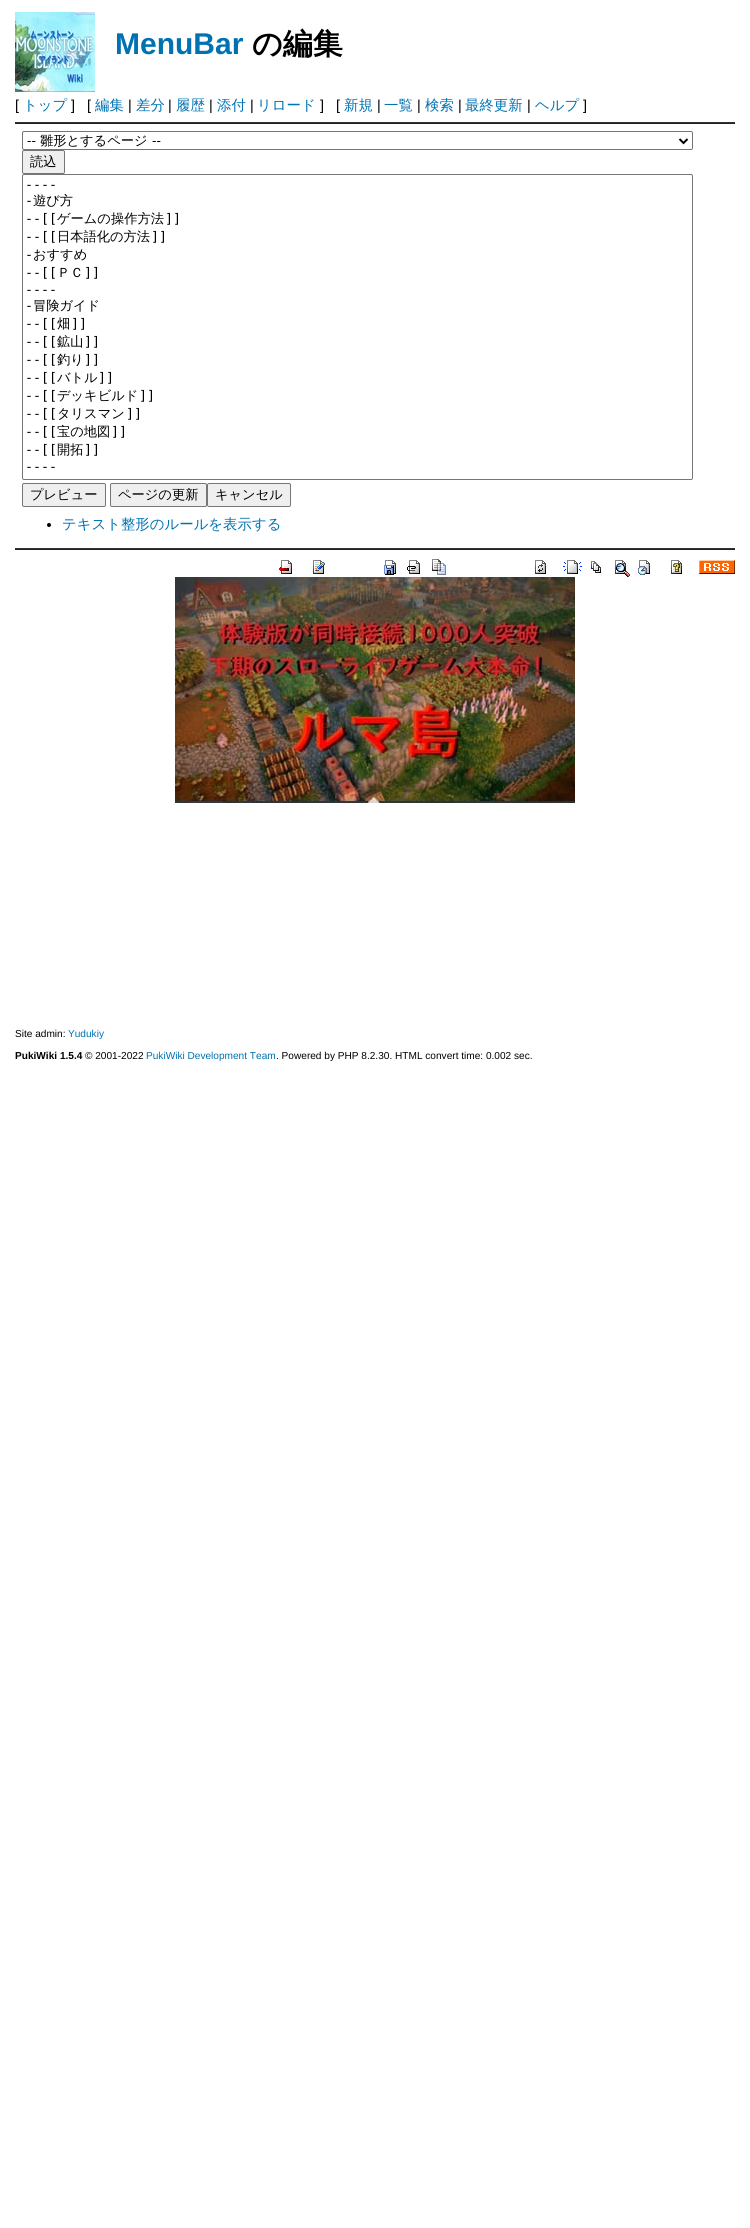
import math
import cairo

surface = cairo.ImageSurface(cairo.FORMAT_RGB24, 750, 2228)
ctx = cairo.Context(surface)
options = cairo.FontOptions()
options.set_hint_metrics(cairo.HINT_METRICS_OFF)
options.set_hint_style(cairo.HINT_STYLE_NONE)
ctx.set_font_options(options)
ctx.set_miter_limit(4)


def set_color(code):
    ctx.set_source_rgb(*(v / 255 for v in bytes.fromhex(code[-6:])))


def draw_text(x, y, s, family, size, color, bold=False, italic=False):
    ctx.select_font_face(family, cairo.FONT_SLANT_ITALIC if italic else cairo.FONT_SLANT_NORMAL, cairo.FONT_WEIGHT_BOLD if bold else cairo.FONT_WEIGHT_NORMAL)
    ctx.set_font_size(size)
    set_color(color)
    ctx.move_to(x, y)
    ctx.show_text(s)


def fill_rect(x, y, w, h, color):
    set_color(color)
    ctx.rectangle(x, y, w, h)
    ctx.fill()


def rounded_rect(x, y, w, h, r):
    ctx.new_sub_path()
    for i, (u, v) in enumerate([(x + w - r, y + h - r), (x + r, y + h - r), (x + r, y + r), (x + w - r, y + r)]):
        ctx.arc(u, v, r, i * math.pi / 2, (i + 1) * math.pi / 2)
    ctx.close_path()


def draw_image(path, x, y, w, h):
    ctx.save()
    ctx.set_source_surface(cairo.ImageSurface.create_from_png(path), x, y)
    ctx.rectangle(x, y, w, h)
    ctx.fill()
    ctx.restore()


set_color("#ffffff")
ctx.paint()
draw_image("assets/img1.png", 15, 12, 80, 80)
draw_text(115, 54, "MenuBar", "Liberation Sans", 30, "#0072b2", bold=True)
draw_text(252, 54, "の編集", "WenQuanYi Zen Hei", 30, "#000000", bold=True)
draw_text(15, 110, "[", "Liberation Sans", 14.4, "#000000")
draw_text(23, 110, "トップ", "WenQuanYi Zen Hei Medium", 14.4, "#0072b2")
draw_text(71, 110, "]", "Liberation Sans", 14.4, "#000000")
draw_text(87, 110, "[", "Liberation Sans", 14.4, "#000000")
draw_text(95, 110, "編集", "WenQuanYi Zen Hei Medium", 14.4, "#0072b2")
draw_text(128, 110, "|", "Liberation Sans", 14.4, "#000000")
draw_text(136, 110, "差分", "WenQuanYi Zen Hei Medium", 14.4, "#0072b2")
draw_text(168, 110, "|", "Liberation Sans", 14.4, "#000000")
draw_text(176, 110, "履歴", "WenQuanYi Zen Hei Medium", 14.4, "#0072b2")
draw_text(209, 110, "|", "Liberation Sans", 14.4, "#000000")
draw_text(217, 110, "添付", "WenQuanYi Zen Hei Medium", 14.4, "#0072b2")
draw_text(250, 110, "|", "Liberation Sans", 14.4, "#000000")
draw_text(257, 110, "リロード", "WenQuanYi Zen Hei Medium", 14.4, "#0072b2")
draw_text(320, 110, "]", "Liberation Sans", 14.4, "#000000")
draw_text(336, 110, "[", "Liberation Sans", 14.4, "#000000")
draw_text(344, 110, "新規", "WenQuanYi Zen Hei Medium", 14.4, "#0072b2")
draw_text(377, 110, "|", "Liberation Sans", 14.4, "#000000")
draw_text(384, 110, "一覧", "WenQuanYi Zen Hei Medium", 14.4, "#0072b2")
draw_text(417, 110, "|", "Liberation Sans", 14.4, "#000000")
draw_text(425, 110, "検索", "WenQuanYi Zen Hei Medium", 14.4, "#0072b2")
draw_text(458, 110, "|", "Liberation Sans", 14.4, "#000000")
draw_text(465, 110, "最終更新", "WenQuanYi Zen Hei Medium", 14.4, "#0072b2")
draw_text(527, 110, "|", "Liberation Sans", 14.4, "#000000")
draw_text(535, 110, "ヘルプ", "WenQuanYi Zen Hei Medium", 14.4, "#0072b2")
draw_text(583, 110, "]", "Liberation Sans", 14.4, "#000000")
fill_rect(15, 122, 720, 1, "#333333")
fill_rect(15, 123, 720, 1, "#222222")
rounded_rect(22.5, 131.5, 670, 18, 1.5)
set_color("#767676")
ctx.set_line_width(1)
ctx.stroke()
ctx.new_path()
ctx.move_to(679.5, 139)
ctx.line_to(683.5, 143)
ctx.line_to(687.5, 139)
set_color("#000000")
ctx.set_line_width(2)
ctx.stroke()
draw_text(27, 145, "--", "Liberation Sans", 13.25, "#000000")
draw_text(40, 145, "雛形とするページ", "WenQuanYi Zen Hei Medium", 13.25, "#000000")
draw_text(152, 145, "--", "Liberation Sans", 13.25, "#000000")
set_color("#efefef")
rounded_rect(22.5, 150.5, 42, 23, 1.5)
ctx.fill_preserve()
set_color("#767676")
ctx.set_line_width(1)
ctx.stroke()
draw_text(30, 166, "読込", "WenQuanYi Zen Hei Medium", 13.25, "#000000")
rounded_rect(22.5, 174.5, 670, 305, 1.5)
set_color("#767676")
ctx.stroke()
draw_text(25, 189, "----", "DejaVu Sans Mono", 13.25, "#000000")
draw_text(25, 205, "-", "DejaVu Sans Mono", 13.25, "#000000")
draw_text(33, 205, "遊び方", "WenQuanYi Zen Hei Medium", 13.25, "#000000")
draw_text(25, 223, "--[[", "DejaVu Sans Mono", 13.25, "#000000")
draw_text(57, 223, "ゲームの操作方法", "WenQuanYi Zen Hei Medium", 13.25, "#000000")
draw_text(165, 223, "]]", "DejaVu Sans Mono", 13.25, "#000000")
draw_text(25, 241, "--[[", "DejaVu Sans Mono", 13.25, "#000000")
draw_text(57, 241, "日本語化の方法", "WenQuanYi Zen Hei Medium", 13.25, "#000000")
draw_text(151, 241, "]]", "DejaVu Sans Mono", 13.25, "#000000")
draw_text(25, 259, "-", "DejaVu Sans Mono", 13.25, "#000000")
draw_text(33, 259, "おすすめ", "WenQuanYi Zen Hei Medium", 13.25, "#000000")
draw_text(25, 277, "--[[", "DejaVu Sans Mono", 13.25, "#000000")
draw_text(57, 277, "ＰＣ", "WenQuanYi Zen Hei Medium", 13.25, "#000000")
draw_text(84, 277, "]]", "DejaVu Sans Mono", 13.25, "#000000")
draw_text(25, 294, "----", "DejaVu Sans Mono", 13.25, "#000000")
draw_text(25, 310, "-", "DejaVu Sans Mono", 13.25, "#000000")
draw_text(33, 310, "冒険ガイド", "WenQuanYi Zen Hei Medium", 13.25, "#000000")
draw_text(25, 328, "--[[", "DejaVu Sans Mono", 13.25, "#000000")
draw_text(57, 328, "畑", "WenQuanYi Zen Hei Medium", 13.25, "#000000")
draw_text(71, 328, "]]", "DejaVu Sans Mono", 13.25, "#000000")
draw_text(25, 346, "--[[", "DejaVu Sans Mono", 13.25, "#000000")
draw_text(57, 346, "鉱山", "WenQuanYi Zen Hei Medium", 13.25, "#000000")
draw_text(84, 346, "]]", "DejaVu Sans Mono", 13.25, "#000000")
draw_text(25, 364, "--[[", "DejaVu Sans Mono", 13.25, "#000000")
draw_text(57, 364, "釣り", "WenQuanYi Zen Hei Medium", 13.25, "#000000")
draw_text(84, 364, "]]", "DejaVu Sans Mono", 13.25, "#000000")
draw_text(25, 382, "--[[", "DejaVu Sans Mono", 13.25, "#000000")
draw_text(57, 382, "バトル", "WenQuanYi Zen Hei Medium", 13.25, "#000000")
draw_text(98, 382, "]]", "DejaVu Sans Mono", 13.25, "#000000")
draw_text(25, 400, "--[[", "DejaVu Sans Mono", 13.25, "#000000")
draw_text(57, 400, "デッキビルド", "WenQuanYi Zen Hei Medium", 13.25, "#000000")
draw_text(139, 400, "]]", "DejaVu Sans Mono", 13.25, "#000000")
draw_text(25, 418, "--[[", "DejaVu Sans Mono", 13.25, "#000000")
draw_text(57, 418, "タリスマン", "WenQuanYi Zen Hei Medium", 13.25, "#000000")
draw_text(126, 418, "]]", "DejaVu Sans Mono", 13.25, "#000000")
draw_text(25, 436, "--[[", "DejaVu Sans Mono", 13.25, "#000000")
draw_text(57, 436, "宝の地図", "WenQuanYi Zen Hei Medium", 13.25, "#000000")
draw_text(111, 436, "]]", "DejaVu Sans Mono", 13.25, "#000000")
draw_text(25, 454, "--[[", "DejaVu Sans Mono", 13.25, "#000000")
draw_text(57, 454, "開拓", "WenQuanYi Zen Hei Medium", 13.25, "#000000")
draw_text(84, 454, "]]", "DejaVu Sans Mono", 13.25, "#000000")
draw_text(25, 471, "----", "DejaVu Sans Mono", 13.25, "#000000")
set_color("#efefef")
rounded_rect(22.5, 483.5, 83, 23, 1.5)
ctx.fill_preserve()
set_color("#767676")
ctx.stroke()
draw_text(30, 499, "プレビュー", "WenQuanYi Zen Hei Medium", 13.25, "#000000")
set_color("#efefef")
rounded_rect(110.5, 483.5, 96, 23, 1.5)
ctx.fill_preserve()
set_color("#767676")
ctx.stroke()
draw_text(118, 499, "ページの更新", "WenQuanYi Zen Hei Medium", 13.25, "#000000")
set_color("#efefef")
rounded_rect(207.5, 483.5, 83, 23, 1.5)
ctx.fill_preserve()
set_color("#767676")
ctx.stroke()
draw_text(215, 499, "キャンセル", "WenQuanYi Zen Hei Medium", 13.25, "#000000")
ctx.new_path()
ctx.arc(49, 525, 2, 0, 2 * math.pi)
ctx.fill()
draw_text(62, 529, "テキスト整形のルールを表示する", "WenQuanYi Zen Hei Medium", 14.4, "#0072b2")
fill_rect(15, 548, 720, 1, "#333333")
fill_rect(15, 549, 720, 1, "#222222")
draw_image("assets/img2.png", 279, 560, 13, 14)
draw_image("assets/img3.png", 313, 560, 12, 14)
draw_image("assets/img4.png", 384, 560, 12, 15)
draw_image("assets/img5.png", 407, 560, 13, 14)
draw_image("assets/img6.png", 432, 559, 14, 16)
draw_image("assets/img7.png", 535, 560, 11, 14)
draw_image("assets/img8.png", 563, 560, 19, 14)
draw_image("assets/img9.png", 591, 561, 10, 12)
draw_image("assets/img10.png", 615, 560, 15, 17)
draw_image("assets/img11.png", 638, 560, 12, 15)
draw_image("assets/img12.png", 671, 560, 11, 14)
draw_image("assets/img13.png", 699, 560, 36, 14)
draw_image("assets/img14.png", 175, 577, 400, 226)
draw_text(15, 1037, "Site admin:", "Liberation Sans", 10.1, "#000000")
draw_text(68, 1037, "Yudukiy", "Liberation Sans", 10.1, "#0072b2")
draw_text(15, 1059, "PukiWiki 1.5.4", "Liberation Sans", 10.1, "#000000", bold=True)
draw_text(85, 1059, "© 2001-2022", "Liberation Sans", 10.1, "#000000")
draw_text(146, 1059, "PukiWiki Development Team", "Liberation Sans", 10.1, "#0072b2")
draw_text(276, 1059, ". Powered by PHP 8.2.30. HTML convert time: 0.002 sec.", "Liberation Sans", 10.1, "#000000")
surface.write_to_png("output.png")
